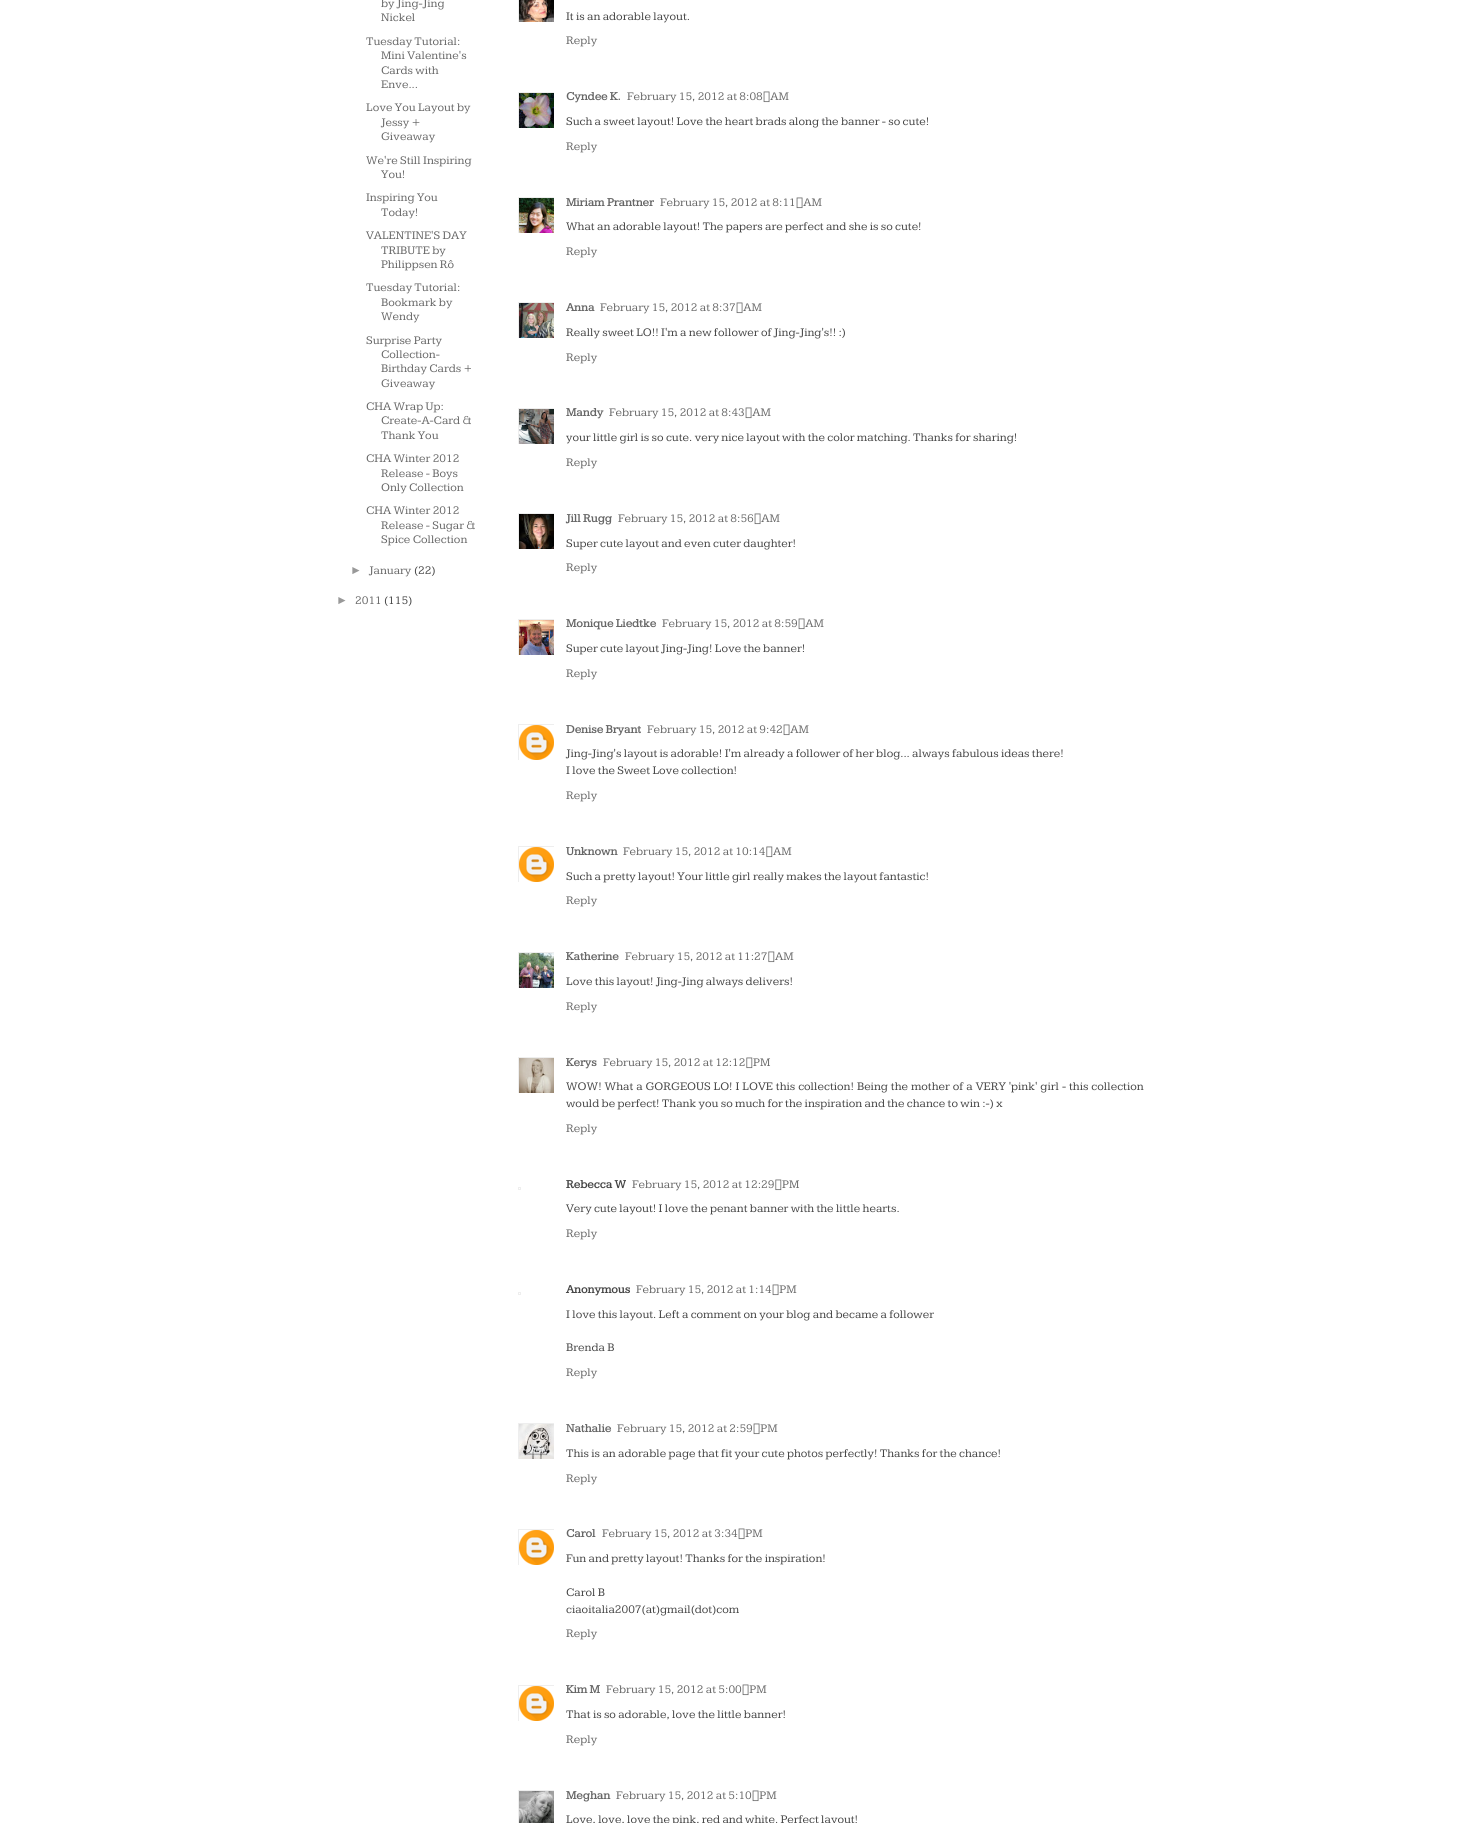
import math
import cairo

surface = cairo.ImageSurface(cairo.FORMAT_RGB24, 1462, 1823)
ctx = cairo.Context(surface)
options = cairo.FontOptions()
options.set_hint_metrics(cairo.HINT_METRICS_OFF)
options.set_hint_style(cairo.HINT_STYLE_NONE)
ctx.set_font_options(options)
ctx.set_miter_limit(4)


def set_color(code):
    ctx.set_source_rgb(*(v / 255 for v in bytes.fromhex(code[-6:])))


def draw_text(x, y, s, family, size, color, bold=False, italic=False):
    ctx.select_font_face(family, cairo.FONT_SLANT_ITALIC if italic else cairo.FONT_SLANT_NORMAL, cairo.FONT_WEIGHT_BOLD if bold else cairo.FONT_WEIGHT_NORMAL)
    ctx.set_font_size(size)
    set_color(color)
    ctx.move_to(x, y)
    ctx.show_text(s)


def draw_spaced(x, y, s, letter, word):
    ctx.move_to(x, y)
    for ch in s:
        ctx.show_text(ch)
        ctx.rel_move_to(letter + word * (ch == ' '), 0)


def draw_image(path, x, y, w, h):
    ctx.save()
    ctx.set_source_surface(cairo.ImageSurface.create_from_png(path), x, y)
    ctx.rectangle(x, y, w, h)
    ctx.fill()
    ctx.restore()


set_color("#ffffff")
ctx.paint()
draw_text(381, 7, "by Jing-Jing", "Kameron", 12, "#666666")
draw_text(381, 21, "Nickel", "Kameron", 12, "#666666")
draw_text(366, 45, "Tuesday Tutorial:", "Kameron", 12, "#666666")
draw_text(381, 59, "Mini Valentine's", "Kameron", 12, "#666666")
draw_text(381, 74, "Cards with", "Kameron", 12, "#666666")
draw_text(381, 88, "Enve...", "Kameron", 12, "#666666")
draw_text(366, 111, "Love You Layout by", "Kameron", 12, "#666666")
draw_text(381, 126, "Jessy +", "Kameron", 12, "#666666")
draw_text(381, 140, "Giveaway", "Kameron", 12, "#666666")
draw_text(366, 164, "We're Still Inspiring", "Kameron", 12, "#666666")
draw_text(381, 178, "You!", "Kameron", 12, "#666666")
draw_text(366, 201, "Inspiring You", "Kameron", 12, "#666666")
draw_text(381, 216, "Today!", "Kameron", 12, "#666666")
draw_text(366, 239, "VALENTINE'S DAY", "Kameron", 12, "#666666")
draw_text(381, 254, "TRIBUTE by", "Kameron", 12, "#666666")
draw_text(381, 268, "Philippsen Rô", "Kameron", 12, "#666666")
draw_text(366, 291, "Tuesday Tutorial:", "Kameron", 12, "#666666")
draw_text(381, 306, "Bookmark by", "Kameron", 12, "#666666")
draw_text(381, 320, "Wendy", "Kameron", 12, "#666666")
draw_text(366, 344, "Surprise Party", "Kameron", 12, "#666666")
draw_text(381, 358, "Collection-", "Kameron", 12, "#666666")
draw_text(381, 372, "Birthday Cards +", "Kameron", 12, "#666666")
draw_text(381, 387, "Giveaway", "Kameron", 12, "#666666")
draw_text(366, 410, "CHA Wrap Up:", "Kameron", 12, "#666666")
draw_text(381, 424, "Create-A-Card &", "Kameron", 12, "#666666")
draw_text(381, 439, "Thank You", "Kameron", 12, "#666666")
draw_text(366, 462, "CHA Winter 2012", "Kameron", 12, "#666666")
draw_text(381, 477, "Release - Boys", "Kameron", 12, "#666666")
draw_text(381, 491, "Only Collection", "Kameron", 12, "#666666")
draw_text(366, 514, "CHA Winter 2012", "Kameron", 12, "#666666")
draw_text(381, 529, "Release - Sugar &", "Kameron", 12, "#666666")
draw_text(381, 543, "Spice Collection", "Kameron", 12, "#666666")
draw_text(350, 574, "►", "Liberation Sans", 12, "#999999")
draw_text(369, 574, "January", "Kameron", 12, "#666666")
draw_text(414, 574, "(22)", "Kameron", 12, "#444444")
draw_text(336, 604, "►", "Liberation Sans", 12, "#999999")
draw_text(355, 604, "2011", "Kameron", 12, "#666666")
draw_text(384, 604, "(115)", "Kameron", 12, "#444444")
ctx.save()
ctx.rectangle(518, 0, 36, 22)
ctx.clip()
ctx.rectangle(518.5, -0.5, 37, 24)
set_color("#eeeeee")
ctx.set_line_width(1)
ctx.stroke()
ctx.restore()
draw_image("assets/img1.png", 519, 0, 35, 22)
draw_text(566, 20, "It is an adorable layout.", "Kameron", 12, "#444444")
draw_text(566, 44, "Reply", "Kameron", 12, "#666666")
ctx.save()
ctx.rectangle(518, 92, 36, 36)
ctx.clip()
ctx.rectangle(518.5, 92.5, 37, 37)
set_color("#eeeeee")
ctx.set_line_width(1)
ctx.stroke()
ctx.restore()
draw_image("assets/img2.png", 519, 93, 35, 35)
draw_text(566, 100, "Cyndee K.", "Kameron", 12, "#666666", bold=True)
draw_text(627, 100, "February 15, 2012 at 8:08 AM", "Kameron", 12, "#666666")
draw_text(566, 125, "Such a sweet layout! Love the heart brads along the banner - so cute!", "Kameron", 12, "#444444")
draw_text(566, 150, "Reply", "Kameron", 12, "#666666")
ctx.save()
ctx.rectangle(518, 197, 36, 36)
ctx.clip()
ctx.rectangle(518.5, 197.5, 37, 37)
set_color("#eeeeee")
ctx.set_line_width(1)
ctx.stroke()
ctx.restore()
draw_image("assets/img3.png", 519, 198, 35, 35)
draw_text(566, 206, "Miriam Prantner", "Kameron", 12, "#666666", bold=True)
draw_text(660, 206, "February 15, 2012 at 8:11 AM", "Kameron", 12, "#666666")
draw_text(566, 230, "What an adorable layout! The papers are perfect and she is so cute!", "Kameron", 12, "#444444")
draw_text(566, 255, "Reply", "Kameron", 12, "#666666")
ctx.save()
ctx.rectangle(518, 302, 36, 36)
ctx.clip()
ctx.rectangle(518.5, 302.5, 37, 37)
set_color("#eeeeee")
ctx.set_line_width(1)
ctx.stroke()
ctx.restore()
draw_image("assets/img4.png", 519, 303, 35, 35)
draw_text(566, 311, "Anna", "Kameron", 12, "#666666", bold=True)
draw_text(600, 311, "February 15, 2012 at 8:37 AM", "Kameron", 12, "#666666")
draw_text(566, 336, "Really sweet LO!! I'm a new follower of Jing-Jing's!! :)", "Kameron", 12, "#444444")
draw_text(566, 361, "Reply", "Kameron", 12, "#666666")
ctx.save()
ctx.rectangle(518, 408, 36, 36)
ctx.clip()
ctx.rectangle(518.5, 408.5, 37, 37)
set_color("#eeeeee")
ctx.set_line_width(1)
ctx.stroke()
ctx.restore()
draw_image("assets/img5.png", 519, 409, 35, 35)
draw_text(566, 416, "Mandy", "Kameron", 12, "#666666", bold=True)
draw_text(609, 416, "February 15, 2012 at 8:43 AM", "Kameron", 12, "#666666")
draw_text(566, 441, "your little girl is so cute. very nice layout with the color matching. Thanks for sharing!", "Kameron", 12, "#444444")
draw_text(566, 466, "Reply", "Kameron", 12, "#666666")
ctx.save()
ctx.rectangle(518, 513, 36, 36)
ctx.clip()
ctx.rectangle(518.5, 513.5, 37, 37)
set_color("#eeeeee")
ctx.set_line_width(1)
ctx.stroke()
ctx.restore()
draw_image("assets/img6.png", 519, 514, 35, 35)
draw_text(566, 522, "Jill Rugg", "Kameron", 12, "#666666", bold=True)
draw_text(618, 522, "February 15, 2012 at 8:56 AM", "Kameron", 12, "#666666")
draw_text(566, 547, "Super cute layout and even cuter daughter!", "Kameron", 12, "#444444")
draw_text(566, 571, "Reply", "Kameron", 12, "#666666")
ctx.save()
ctx.rectangle(518, 619, 36, 36)
ctx.clip()
ctx.rectangle(518.5, 619.5, 37, 37)
set_color("#eeeeee")
ctx.set_line_width(1)
ctx.stroke()
ctx.restore()
draw_image("assets/img7.png", 519, 620, 35, 35)
draw_text(566, 627, "Monique Liedtke", "Kameron", 12, "#666666", bold=True)
draw_text(662, 627, "February 15, 2012 at 8:59 AM", "Kameron", 12, "#666666")
draw_text(566, 652, "Super cute layout Jing-Jing! Love the banner!", "Kameron", 12, "#444444")
draw_text(566, 677, "Reply", "Kameron", 12, "#666666")
ctx.save()
ctx.rectangle(518, 724, 36, 36)
ctx.clip()
ctx.rectangle(518.5, 724.5, 36, 36)
set_color("#eeeeee")
ctx.set_line_width(1)
ctx.stroke()
ctx.restore()
draw_image("assets/img8.png", 519, 725, 35, 35)
draw_text(566, 733, "Denise Bryant", "Kameron", 12, "#666666", bold=True)
draw_text(647, 733, "February 15, 2012 at 9:42 AM", "Kameron", 12, "#666666")
draw_text(566, 757, "Jing-Jing's layout is adorable! I'm already a follower of her blog... always fabulous ideas there!", "Kameron", 12, "#444444")
draw_text(566, 774, "I love the Sweet Love collection!", "Kameron", 12, "#444444")
draw_text(566, 799, "Reply", "Kameron", 12, "#666666")
ctx.save()
ctx.rectangle(518, 846, 36, 36)
ctx.clip()
ctx.rectangle(518.5, 846.5, 36, 36)
set_color("#eeeeee")
ctx.set_line_width(1)
ctx.stroke()
ctx.restore()
draw_image("assets/img8.png", 519, 847, 35, 35)
draw_text(566, 855, "Unknown", "Kameron", 12, "#666666", bold=True)
draw_text(623, 855, "February 15, 2012 at 10:14 AM", "Kameron", 12, "#666666")
draw_text(566, 880, "Such a pretty layout! Your little girl really makes the layout fantastic!", "Kameron", 12, "#444444")
draw_text(566, 904, "Reply", "Kameron", 12, "#666666")
ctx.save()
ctx.rectangle(518, 952, 36, 36)
ctx.clip()
ctx.rectangle(518.5, 952.5, 37, 37)
set_color("#eeeeee")
ctx.set_line_width(1)
ctx.stroke()
ctx.restore()
draw_image("assets/img9.png", 519, 953, 35, 35)
draw_text(566, 960, "Katherine", "Kameron", 12, "#666666", bold=True)
draw_text(625, 960, "February 15, 2012 at 11:27 AM", "Kameron", 12, "#666666")
draw_text(566, 985, "Love this layout! Jing-Jing always delivers!", "Kameron", 12, "#444444")
draw_text(566, 1010, "Reply", "Kameron", 12, "#666666")
ctx.save()
ctx.rectangle(518, 1057, 36, 36)
ctx.clip()
ctx.rectangle(518.5, 1057.5, 37, 37)
set_color("#eeeeee")
ctx.set_line_width(1)
ctx.stroke()
ctx.restore()
draw_image("assets/img10.png", 519, 1058, 35, 35)
draw_text(566, 1066, "Kerys", "Kameron", 12, "#666666", bold=True)
draw_text(603, 1066, "February 15, 2012 at 12:12 PM", "Kameron", 12, "#666666")
set_color("#444444")
draw_spaced(566, 1090, "WOW! What a GORGEOUS LO! I LOVE this collection! Being the mother of a VERY 'pink' girl - this collection", 0, 0.6)
draw_text(566, 1107, "would be perfect! Thank you so much for the inspiration and the chance to win :-) x", "Kameron", 12, "#444444")
draw_text(566, 1132, "Reply", "Kameron", 12, "#666666")
ctx.rectangle(518.5, 1187.5, 2, 2)
set_color("#eeeeee")
ctx.set_line_width(1)
ctx.stroke()
draw_text(566, 1188, "Rebecca W", "Kameron", 12, "#444444", bold=True)
draw_text(632, 1188, "February 15, 2012 at 12:29 PM", "Kameron", 12, "#666666")
draw_text(566, 1212, "Very cute layout! I love the penant banner with the little hearts.", "Kameron", 12, "#444444")
draw_text(566, 1237, "Reply", "Kameron", 12, "#666666")
ctx.rectangle(518.5, 1292.5, 2, 2)
set_color("#eeeeee")
ctx.stroke()
draw_text(566, 1293, "Anonymous", "Kameron", 12, "#444444", bold=True)
draw_text(636, 1293, "February 15, 2012 at 1:14 PM", "Kameron", 12, "#666666")
draw_text(566, 1318, "I love this layout. Left a comment on your blog and became a follower", "Kameron", 12, "#444444")
draw_text(566, 1351, "Brenda B", "Kameron", 12, "#444444")
draw_text(566, 1376, "Reply", "Kameron", 12, "#666666")
ctx.save()
ctx.rectangle(518, 1423, 36, 36)
ctx.clip()
ctx.rectangle(518.5, 1423.5, 37, 37)
set_color("#eeeeee")
ctx.stroke()
ctx.restore()
draw_image("assets/img11.png", 519, 1424, 35, 35)
draw_text(566, 1432, "Nathalie", "Kameron", 12, "#666666", bold=True)
draw_text(617, 1432, "February 15, 2012 at 2:59 PM", "Kameron", 12, "#666666")
draw_text(566, 1457, "This is an adorable page that fit your cute photos perfectly! Thanks for the chance!", "Kameron", 12, "#444444")
draw_text(566, 1482, "Reply", "Kameron", 12, "#666666")
ctx.save()
ctx.rectangle(518, 1529, 36, 36)
ctx.clip()
ctx.rectangle(518.5, 1529.5, 36, 36)
set_color("#eeeeee")
ctx.stroke()
ctx.restore()
draw_image("assets/img8.png", 519, 1530, 35, 35)
draw_text(566, 1537, "Carol", "Kameron", 12, "#666666", bold=True)
draw_text(602, 1537, "February 15, 2012 at 3:34 PM", "Kameron", 12, "#666666")
draw_text(566, 1562, "Fun and pretty layout! Thanks for the inspiration!", "Kameron", 12, "#444444")
draw_text(566, 1596, "Carol B", "Kameron", 12, "#444444")
draw_text(566, 1613, "ciaoitalia2007(at)gmail(dot)com", "Kameron", 12, "#444444")
draw_text(566, 1637, "Reply", "Kameron", 12, "#666666")
ctx.save()
ctx.rectangle(518, 1685, 36, 36)
ctx.clip()
ctx.rectangle(518.5, 1685.5, 36, 36)
set_color("#eeeeee")
ctx.stroke()
ctx.restore()
draw_image("assets/img8.png", 519, 1686, 35, 35)
draw_text(566, 1693, "Kim M", "Kameron", 12, "#666666", bold=True)
draw_text(606, 1693, "February 15, 2012 at 5:00 PM", "Kameron", 12, "#666666")
draw_text(566, 1718, "That is so adorable, love the little banner!", "Kameron", 12, "#444444")
draw_text(566, 1743, "Reply", "Kameron", 12, "#666666")
ctx.save()
ctx.rectangle(518, 1790, 36, 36)
ctx.clip()
ctx.rectangle(518.5, 1790.5, 37, 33)
set_color("#eeeeee")
ctx.stroke()
ctx.restore()
draw_image("assets/img12.png", 519, 1791, 35, 32)
draw_text(566, 1799, "Meghan", "Kameron", 12, "#666666", bold=True)
draw_text(616, 1799, "February 15, 2012 at 5:10 PM", "Kameron", 12, "#666666")
draw_text(566, 1823, "Love, love, love the pink, red and white. Perfect layout!", "Kameron", 12, "#444444")
surface.write_to_png("output.png")
